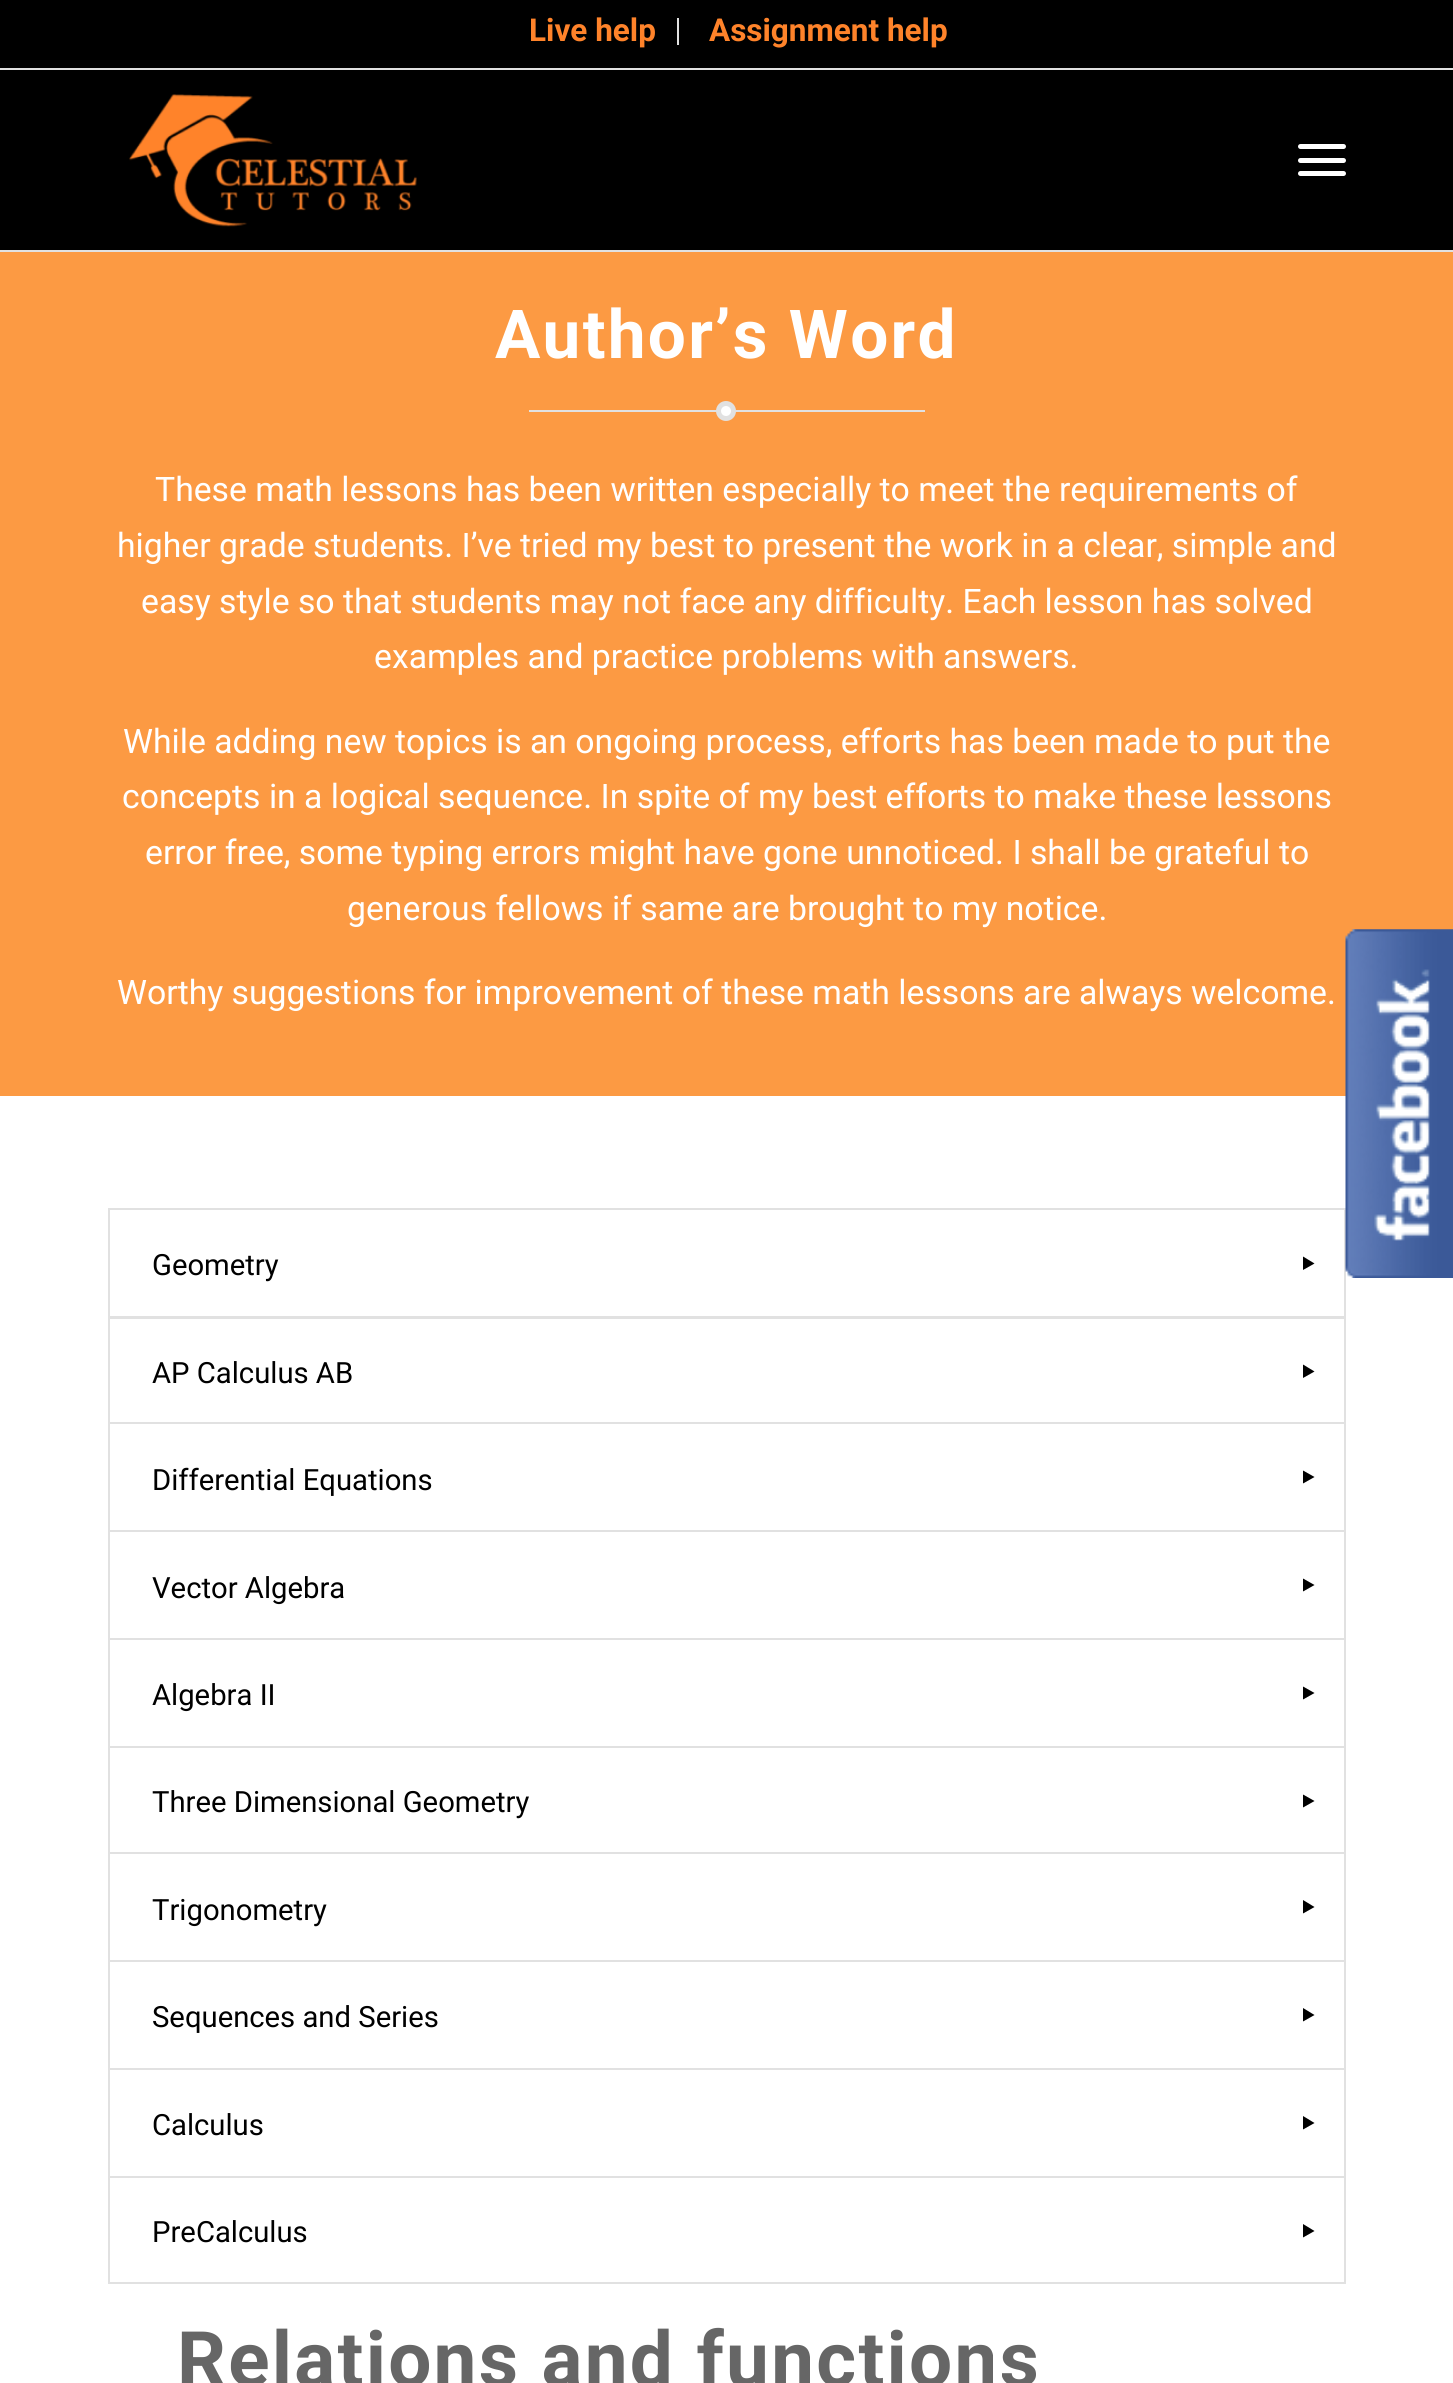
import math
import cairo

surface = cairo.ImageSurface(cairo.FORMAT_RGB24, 1453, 2383)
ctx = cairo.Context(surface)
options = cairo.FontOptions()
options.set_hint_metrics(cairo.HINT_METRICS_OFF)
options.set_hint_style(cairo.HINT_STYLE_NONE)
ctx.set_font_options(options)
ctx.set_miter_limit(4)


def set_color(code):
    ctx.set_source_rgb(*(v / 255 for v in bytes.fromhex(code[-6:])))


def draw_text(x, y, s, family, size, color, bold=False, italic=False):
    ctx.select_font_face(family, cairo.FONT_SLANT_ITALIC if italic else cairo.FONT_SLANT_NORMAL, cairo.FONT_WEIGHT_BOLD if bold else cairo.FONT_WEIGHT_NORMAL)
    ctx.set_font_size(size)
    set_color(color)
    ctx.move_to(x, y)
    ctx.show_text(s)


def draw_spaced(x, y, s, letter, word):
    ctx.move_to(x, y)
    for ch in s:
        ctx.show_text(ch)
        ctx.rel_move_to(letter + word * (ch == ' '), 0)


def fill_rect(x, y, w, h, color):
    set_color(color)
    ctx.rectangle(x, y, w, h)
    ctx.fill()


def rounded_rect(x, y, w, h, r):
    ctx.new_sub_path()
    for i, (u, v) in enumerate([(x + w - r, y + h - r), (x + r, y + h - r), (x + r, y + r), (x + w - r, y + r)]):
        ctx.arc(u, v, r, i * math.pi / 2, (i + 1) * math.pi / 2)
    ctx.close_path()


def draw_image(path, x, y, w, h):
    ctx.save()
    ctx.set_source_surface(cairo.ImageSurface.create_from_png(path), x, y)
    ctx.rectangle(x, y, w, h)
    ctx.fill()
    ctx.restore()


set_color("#ffffff")
ctx.paint()
fill_rect(0, 0, 1453, 68, "#000000")
fill_rect(0, 68, 1453, 2, "#e1e1e1")
fill_rect(677, 18, 2, 27, "#e1e1e1")
draw_text(529, 41, "Live help", "Roboto", 31.5, "#ff832a", bold=True)
draw_text(709, 41, "Assignment help", "Roboto", 31.5, "#ff832a", bold=True)
fill_rect(0, 70, 1453, 180, "#000000")
fill_rect(0, 250, 1453, 2, "#e1e1e1")
draw_image("assets/img1.png", 129, 94, 288, 133)
set_color("#ffffff")
rounded_rect(1298, 158, 48, 5, 2.5)
ctx.fill()
rounded_rect(1298, 144, 48, 5, 2.5)
ctx.fill()
rounded_rect(1298, 171, 48, 5, 2.5)
ctx.fill()
fill_rect(0, 252, 1453, 844, "#fc9a43")
ctx.set_font_size(67.5)
set_color("#ffffff")
draw_spaced(495, 358, "Author’s Word", 2.25, 0)
fill_rect(529, 410, 396, 2, "#e1e1e1")
set_color("#ffffff")
ctx.new_path()
ctx.arc(726, 411, 7.5, 0, 2 * math.pi)
ctx.fill_preserve()
set_color("#e1e1e1")
ctx.set_line_width(5)
ctx.stroke()
draw_text(155, 501, "These math lessons has been written especially to meet the requirements of", "Roboto", 33.75, "#ffffff")
draw_text(117, 557, "higher grade students. I’ve tried my best to present the work in a clear, simple and", "Roboto", 33.75, "#ffffff")
draw_text(141, 613, "easy style so that students may not face any difficulty. Each lesson has solved", "Roboto", 33.75, "#ffffff")
draw_text(374, 668, "examples and practice problems with answers.", "Roboto", 33.75, "#ffffff")
draw_text(123, 753, "While adding new topics is an ongoing process, efforts has been made to put the", "Roboto", 33.75, "#ffffff")
draw_text(122, 808, "concepts in a logical sequence. In spite of my best efforts to make these lessons", "Roboto", 33.75, "#ffffff")
draw_text(145, 864, "error free, some typing errors might have gone unnoticed. I shall be grateful to", "Roboto", 33.75, "#ffffff")
draw_text(347, 920, "generous fellows if same are brought to my notice.", "Roboto", 33.75, "#ffffff")
draw_text(117, 1004, "Worthy suggestions for improvement of these math lessons are always welcome.", "Roboto", 33.75, "#ffffff")
ctx.rectangle(109, 1209, 1236, 109)
set_color("#e1e1e1")
ctx.set_line_width(2)
ctx.stroke()
draw_text(152, 1275, "Geometry", "Roboto", 29.25, "#000000")
ctx.new_path()
ctx.move_to(1303, 1256.5)
ctx.line_to(1314.5, 1263.5)
ctx.line_to(1303, 1270)
ctx.close_path()
ctx.fill()
ctx.rectangle(109, 1317, 1236, 106)
set_color("#e1e1e1")
ctx.stroke()
draw_text(152, 1383, "AP Calculus AB", "Roboto", 29.25, "#000000")
ctx.new_path()
ctx.move_to(1303, 1364.5)
ctx.line_to(1314.5, 1371.5)
ctx.line_to(1303, 1378)
ctx.close_path()
ctx.fill()
ctx.rectangle(109, 1423, 1236, 108)
set_color("#e1e1e1")
ctx.stroke()
draw_text(152, 1490, "Differential Equations", "Roboto", 29.25, "#000000")
ctx.new_path()
ctx.move_to(1303, 1470.5)
ctx.line_to(1314.5, 1477)
ctx.line_to(1303, 1483.5)
ctx.close_path()
ctx.fill()
ctx.rectangle(109, 1531, 1236, 108)
set_color("#e1e1e1")
ctx.stroke()
draw_text(152, 1598, "Vector Algebra", "Roboto", 29.25, "#000000")
ctx.new_path()
ctx.move_to(1303, 1578.5)
ctx.line_to(1314.5, 1585)
ctx.line_to(1303, 1591.5)
ctx.close_path()
ctx.fill()
ctx.rectangle(109, 1639, 1236, 108)
set_color("#e1e1e1")
ctx.stroke()
draw_text(152, 1705, "Algebra II", "Roboto", 29.25, "#000000")
ctx.new_path()
ctx.move_to(1303, 1686.5)
ctx.line_to(1314.5, 1693)
ctx.line_to(1303, 1699.5)
ctx.close_path()
ctx.fill()
ctx.rectangle(109, 1747, 1236, 106)
set_color("#e1e1e1")
ctx.stroke()
draw_text(152, 1812, "Three Dimensional Geometry", "Roboto", 29.25, "#000000")
ctx.new_path()
ctx.move_to(1303, 1794.5)
ctx.line_to(1314.5, 1801)
ctx.line_to(1303, 1807.5)
ctx.close_path()
ctx.fill()
ctx.rectangle(109, 1853, 1236, 108)
set_color("#e1e1e1")
ctx.stroke()
draw_text(152, 1920, "Trigonometry", "Roboto", 29.25, "#000000")
ctx.new_path()
ctx.move_to(1303, 1900)
ctx.line_to(1314.5, 1907)
ctx.line_to(1303, 1913.5)
ctx.close_path()
ctx.fill()
ctx.rectangle(109, 1961, 1236, 108)
set_color("#e1e1e1")
ctx.stroke()
draw_text(152, 2027, "Sequences and Series", "Roboto", 29.25, "#000000")
ctx.new_path()
ctx.move_to(1303, 2008)
ctx.line_to(1314.5, 2015)
ctx.line_to(1303, 2021.5)
ctx.close_path()
ctx.fill()
ctx.rectangle(109, 2069, 1236, 108)
set_color("#e1e1e1")
ctx.stroke()
draw_text(152, 2135, "Calculus", "Roboto", 29.25, "#000000")
ctx.new_path()
ctx.move_to(1303, 2116)
ctx.line_to(1314.5, 2123)
ctx.line_to(1303, 2129.5)
ctx.close_path()
ctx.fill()
ctx.rectangle(109, 2177, 1236, 106)
set_color("#e1e1e1")
ctx.stroke()
draw_text(152, 2242, "PreCalculus", "Roboto", 29.25, "#000000")
ctx.new_path()
ctx.move_to(1303, 2224)
ctx.line_to(1314.5, 2231)
ctx.line_to(1303, 2237.5)
ctx.close_path()
ctx.fill()
ctx.select_font_face("Roboto", cairo.FONT_SLANT_NORMAL, cairo.FONT_WEIGHT_BOLD)
ctx.set_font_size(76.5)
set_color("#666666")
draw_spaced(177, 2386, "Relations and functions", 2.25, 0)
draw_image("assets/img2.png", 1345, 929, 108, 349)
surface.write_to_png("output.png")
